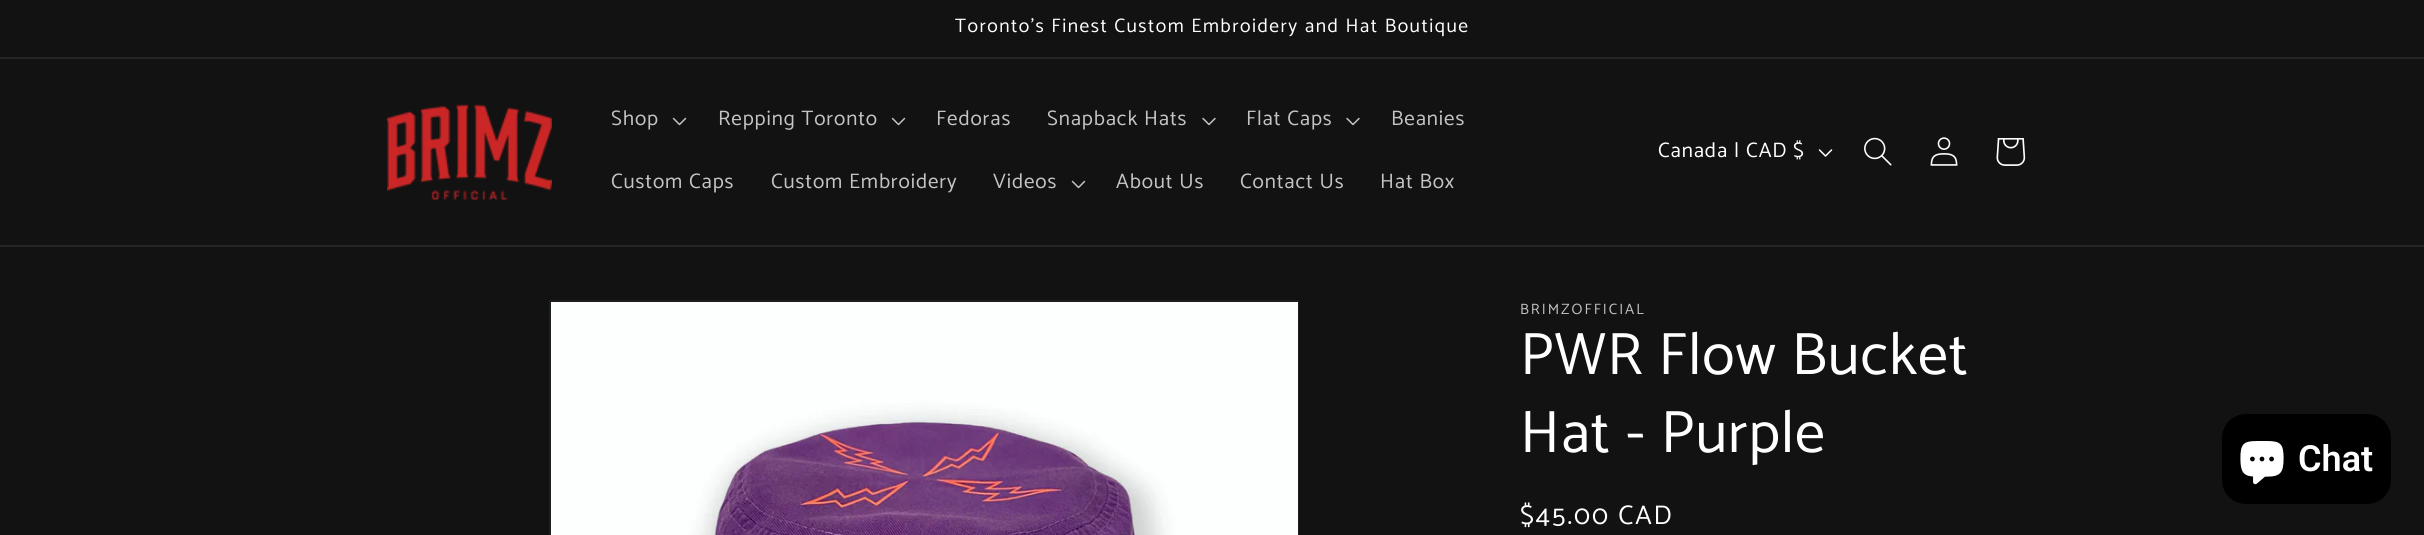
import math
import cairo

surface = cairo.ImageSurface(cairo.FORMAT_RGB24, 2424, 535)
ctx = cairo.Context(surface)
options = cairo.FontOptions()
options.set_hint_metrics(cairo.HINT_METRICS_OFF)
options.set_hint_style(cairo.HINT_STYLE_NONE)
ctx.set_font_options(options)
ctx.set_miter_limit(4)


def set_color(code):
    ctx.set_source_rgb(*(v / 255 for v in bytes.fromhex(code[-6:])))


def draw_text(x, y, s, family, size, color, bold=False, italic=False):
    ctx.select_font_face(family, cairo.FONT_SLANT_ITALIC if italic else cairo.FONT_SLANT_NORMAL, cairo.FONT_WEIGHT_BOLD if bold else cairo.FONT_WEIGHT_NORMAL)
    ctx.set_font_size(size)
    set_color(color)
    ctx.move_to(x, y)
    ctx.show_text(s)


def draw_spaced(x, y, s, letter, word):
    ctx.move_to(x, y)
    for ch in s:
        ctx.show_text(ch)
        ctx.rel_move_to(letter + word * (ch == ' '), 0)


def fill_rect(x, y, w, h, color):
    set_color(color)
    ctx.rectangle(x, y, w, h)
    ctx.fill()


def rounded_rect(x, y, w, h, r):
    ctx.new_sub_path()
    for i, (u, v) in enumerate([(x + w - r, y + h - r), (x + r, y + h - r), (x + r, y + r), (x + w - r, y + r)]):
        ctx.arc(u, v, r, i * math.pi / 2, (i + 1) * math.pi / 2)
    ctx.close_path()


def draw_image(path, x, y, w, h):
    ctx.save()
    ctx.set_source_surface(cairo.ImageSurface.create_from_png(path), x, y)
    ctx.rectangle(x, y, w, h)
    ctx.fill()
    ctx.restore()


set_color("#121212")
ctx.paint()
fill_rect(0, 57, 2424, 2, "#252525")
ctx.select_font_face("Catamaran")
ctx.set_font_size(19.5)
set_color("#ffffff")
draw_spaced(955, 32, "Toronto's Finest Custom Embroidery and Hat Boutique", 1.5, 0)
fill_rect(0, 245, 2424, 2, "#252525")
draw_image("assets/img1.png", 387, 104, 165, 96)
ctx.set_font_size(21)
set_color("#c4c4c4")
draw_spaced(611, 125, "Shop", 0.9, 0)
draw_image("assets/img2.png", 672, 117, 15, 9)
draw_spaced(718, 125, "Repping Toronto", 0.9, 0)
draw_image("assets/img2.png", 891, 117, 15, 9)
draw_spaced(936, 125, "Fedoras", 0.9, 0)
draw_spaced(1047, 125, "Snapback Hats", 0.9, 0)
draw_image("assets/img3.png", 1202, 117, 14, 9)
draw_spaced(1246, 125, "Flat Caps", 0.9, 0)
draw_image("assets/img3.png", 1346, 117, 14, 9)
draw_spaced(1391, 125, "Beanies", 0.9, 0)
draw_spaced(611, 188, "Custom Caps", 0.9, 0)
draw_spaced(771, 188, "Custom Embroidery", 0.9, 0)
draw_spaced(993, 188, "Videos", 0.9, 0)
draw_image("assets/img2.png", 1071, 180, 15, 9)
draw_spaced(1116, 188, "About Us", 0.9, 0)
draw_spaced(1240, 188, "Contact Us", 0.9, 0)
draw_spaced(1380, 188, "Hat Box", 0.9, 0)
set_color("#ffffff")
draw_spaced(1658, 157, "Canada | CAD $", 0.9, 0)
draw_image("assets/img4.png", 1818, 149, 15, 8)
draw_image("assets/img5.png", 1864, 137, 28, 29)
draw_image("assets/img6.png", 1930, 137, 28, 29)
draw_image("assets/img7.png", 1996, 138, 30, 28)
ctx.rectangle(550, 301, 748, 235)
set_color("#1e1e1e")
ctx.stroke()
draw_image("assets/img8.png", 551, 302, 747, 233)
ctx.set_font_size(15)
set_color("#c4c4c4")
draw_spaced(1520, 314, "BRIMZOFFICIAL", 2, 0)
ctx.set_font_size(60)
set_color("#ffffff")
draw_spaced(1520, 374, "PWR Flow Bucket", 0.9, 0)
draw_spaced(1520, 452, "Hat - Purple", 0.9, 0)
ctx.set_font_size(27)
draw_spaced(1520, 524, "$45.00 CAD", 2, 0)
set_color("#000000")
rounded_rect(2222, 414, 169, 90, 24)
ctx.fill()
draw_image("assets/img9.png", 2240, 441, 44, 44)
draw_text(2298, 471, "Chat", "Roboto SemiBold", 36, "#ffffff")
surface.write_to_png("output.png")
